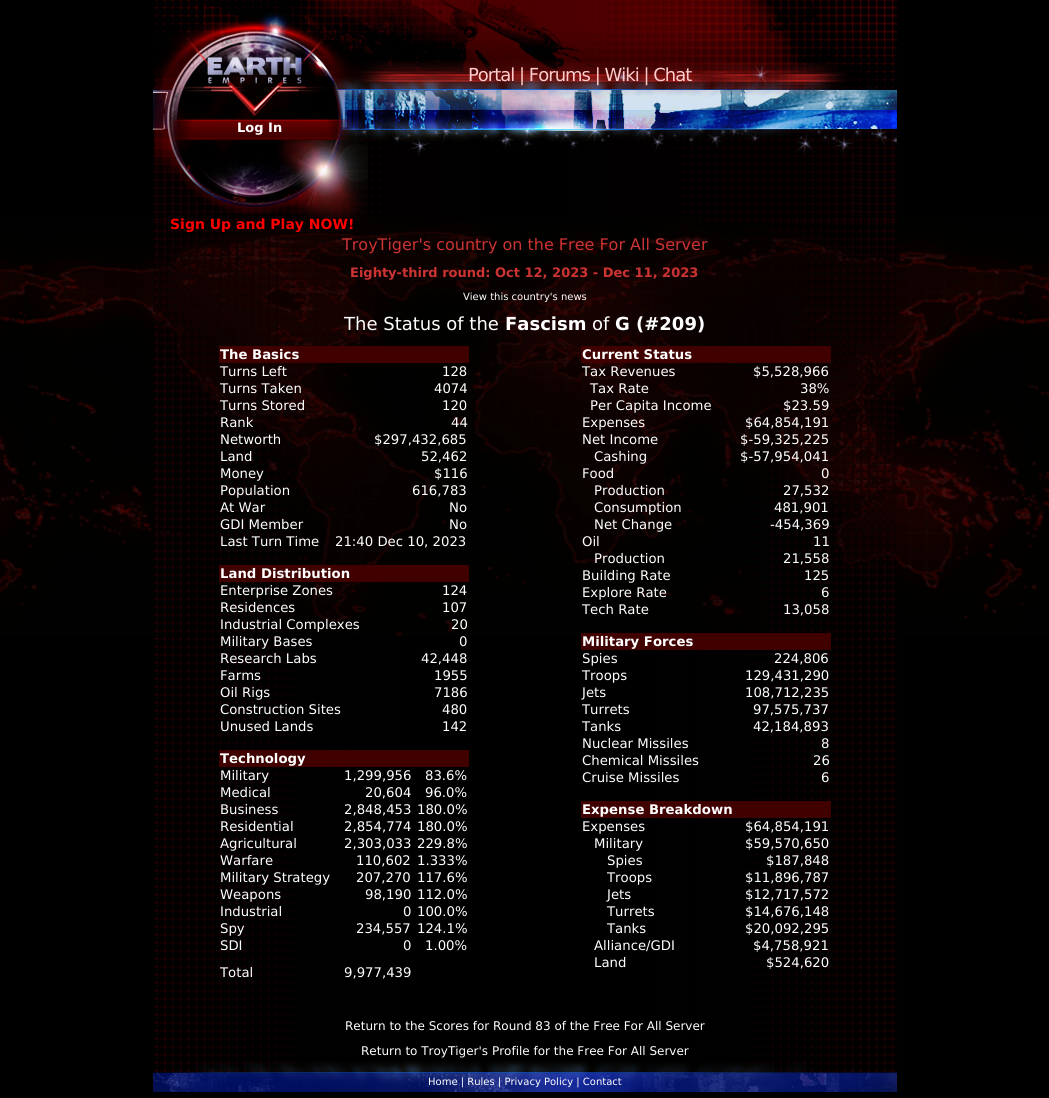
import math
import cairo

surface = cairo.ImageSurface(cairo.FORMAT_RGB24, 1049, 1098)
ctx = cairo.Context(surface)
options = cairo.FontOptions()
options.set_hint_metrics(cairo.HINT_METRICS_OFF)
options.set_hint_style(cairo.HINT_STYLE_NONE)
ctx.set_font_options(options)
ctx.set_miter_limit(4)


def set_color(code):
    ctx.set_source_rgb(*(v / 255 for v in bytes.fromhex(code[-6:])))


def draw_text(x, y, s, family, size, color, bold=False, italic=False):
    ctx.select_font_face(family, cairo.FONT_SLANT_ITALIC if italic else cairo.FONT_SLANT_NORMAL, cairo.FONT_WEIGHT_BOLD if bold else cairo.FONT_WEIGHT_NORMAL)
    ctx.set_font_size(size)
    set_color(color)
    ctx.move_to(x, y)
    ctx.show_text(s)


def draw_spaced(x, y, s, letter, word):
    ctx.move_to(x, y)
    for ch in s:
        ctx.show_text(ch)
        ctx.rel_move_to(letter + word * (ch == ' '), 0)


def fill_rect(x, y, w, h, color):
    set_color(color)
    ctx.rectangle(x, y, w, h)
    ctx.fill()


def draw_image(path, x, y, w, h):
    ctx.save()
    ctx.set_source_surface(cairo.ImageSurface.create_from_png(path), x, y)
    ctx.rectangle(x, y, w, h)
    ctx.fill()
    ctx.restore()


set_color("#000000")
ctx.paint()
draw_image("assets/img1.png", 0, 217, 1049, 419)
draw_image("assets/img2.png", 153, 221, 744, 871)
draw_image("assets/img3.png", 153, 0, 744, 221)
ctx.select_font_face("DejaVu Sans")
ctx.set_font_size(18)
set_color("#ffcccc")
draw_spaced(468, 81, "Portal | Forums | Wiki | Chat", -1, 0)
draw_image("assets/img4.png", 154, 12, 214, 209)
draw_image("assets/img5.png", 168, 119, 183, 21)
draw_text(237, 132, "Log In", "DejaVu Sans", 13, "#ffffff", bold=True)
draw_text(170, 229, "Sign Up and Play NOW!", "DejaVu Sans", 14, "#ff0000", bold=True)
draw_text(342, 250, "TroyTiger's country on the Free For All Server", "DejaVu Sans", 16, "#cc3333")
draw_text(350, 277, "Eighty-third round: Oct 12, 2023 - Dec 11, 2023", "DejaVu Sans", 13, "#cc3333", bold=True)
draw_text(463, 300, "View this country's news", "DejaVu Sans", 10, "#ffffff")
draw_text(344, 330, "The Status of the", "DejaVu Sans", 18, "#ffffff")
draw_text(505, 330, "Fascism", "DejaVu Sans", 18, "#ffffff", bold=True)
draw_text(592, 330, "of", "DejaVu Sans", 18, "#ffffff")
draw_text(615, 330, "G (#209)", "DejaVu Sans", 18, "#ffffff", bold=True)
fill_rect(219, 346, 250, 17, "#400000")
draw_text(220, 359, "The Basics", "DejaVu Sans", 13.25, "#ffffff", bold=True)
draw_text(220, 376, "Turns Left", "DejaVu Sans", 13.25, "#ffffff")
draw_text(442, 376, "128", "DejaVu Sans", 13.25, "#ffffff")
draw_text(220, 393, "Turns Taken", "DejaVu Sans", 13.25, "#ffffff")
draw_text(434, 393, "4074", "DejaVu Sans", 13.25, "#ffffff")
draw_text(220, 410, "Turns Stored", "DejaVu Sans", 13.25, "#ffffff")
draw_text(442, 410, "120", "DejaVu Sans", 13.25, "#ffffff")
draw_text(220, 427, "Rank", "DejaVu Sans", 13.25, "#ffffff")
draw_text(451, 427, "44", "DejaVu Sans", 13.25, "#ffffff")
draw_text(220, 444, "Networth", "DejaVu Sans", 13.25, "#ffffff")
draw_text(374, 444, "$297,432,685", "DejaVu Sans", 13.25, "#ffffff")
draw_text(220, 461, "Land", "DejaVu Sans", 13.25, "#ffffff")
draw_text(421, 461, "52,462", "DejaVu Sans", 13.25, "#ffffff")
draw_text(220, 478, "Money", "DejaVu Sans", 13.25, "#ffffff")
draw_text(434, 478, "$116", "DejaVu Sans", 13.25, "#ffffff")
draw_text(220, 495, "Population", "DejaVu Sans", 13.25, "#ffffff")
draw_text(412, 495, "616,783", "DejaVu Sans", 13.25, "#ffffff")
draw_text(220, 512, "At War", "DejaVu Sans", 13.25, "#ffffff")
draw_text(449, 512, "No", "DejaVu Sans", 13.25, "#ffffff")
draw_text(220, 529, "GDI Member", "DejaVu Sans", 13.25, "#ffffff")
draw_text(449, 529, "No", "DejaVu Sans", 13.25, "#ffffff")
draw_text(220, 546, "Last Turn Time", "DejaVu Sans", 13.25, "#ffffff")
draw_text(335, 546, "21:40 Dec 10, 2023", "DejaVu Sans", 13.25, "#ffffff")
fill_rect(219, 565, 250, 17, "#400000")
draw_text(220, 578, "Land Distribution", "DejaVu Sans", 13.25, "#ffffff", bold=True)
draw_text(220, 595, "Enterprise Zones", "DejaVu Sans", 13.25, "#ffffff")
draw_text(442, 595, "124", "DejaVu Sans", 13.25, "#ffffff")
draw_text(220, 612, "Residences", "DejaVu Sans", 13.25, "#ffffff")
draw_text(442, 612, "107", "DejaVu Sans", 13.25, "#ffffff")
draw_text(220, 629, "Industrial Complexes", "DejaVu Sans", 13.25, "#ffffff")
draw_text(451, 629, "20", "DejaVu Sans", 13.25, "#ffffff")
draw_text(220, 646, "Military Bases", "DejaVu Sans", 13.25, "#ffffff")
draw_text(459, 646, "0", "DejaVu Sans", 13.25, "#ffffff")
draw_text(220, 663, "Research Labs", "DejaVu Sans", 13.25, "#ffffff")
draw_text(421, 663, "42,448", "DejaVu Sans", 13.25, "#ffffff")
draw_text(220, 680, "Farms", "DejaVu Sans", 13.25, "#ffffff")
draw_text(434, 680, "1955", "DejaVu Sans", 13.25, "#ffffff")
draw_text(220, 697, "Oil Rigs", "DejaVu Sans", 13.25, "#ffffff")
draw_text(434, 697, "7186", "DejaVu Sans", 13.25, "#ffffff")
draw_text(220, 714, "Construction Sites", "DejaVu Sans", 13.25, "#ffffff")
draw_text(442, 714, "480", "DejaVu Sans", 13.25, "#ffffff")
draw_text(220, 731, "Unused Lands", "DejaVu Sans", 13.25, "#ffffff")
draw_text(442, 731, "142", "DejaVu Sans", 13.25, "#ffffff")
fill_rect(219, 750, 250, 17, "#400000")
draw_text(220, 763, "Technology", "DejaVu Sans", 13.25, "#ffffff", bold=True)
draw_text(220, 780, "Military", "DejaVu Sans", 13.25, "#ffffff")
draw_text(344, 780, "1,299,956", "DejaVu Sans", 13.25, "#ffffff")
draw_text(425, 780, "83.6%", "DejaVu Sans", 13.25, "#ffffff")
draw_text(220, 797, "Medical", "DejaVu Sans", 13.25, "#ffffff")
draw_text(365, 797, "20,604", "DejaVu Sans", 13.25, "#ffffff")
draw_text(425, 797, "96.0%", "DejaVu Sans", 13.25, "#ffffff")
draw_text(220, 814, "Business", "DejaVu Sans", 13.25, "#ffffff")
draw_text(344, 814, "2,848,453", "DejaVu Sans", 13.25, "#ffffff")
draw_text(417, 814, "180.0%", "DejaVu Sans", 13.25, "#ffffff")
draw_text(220, 831, "Residential", "DejaVu Sans", 13.25, "#ffffff")
draw_text(344, 831, "2,854,774", "DejaVu Sans", 13.25, "#ffffff")
draw_text(417, 831, "180.0%", "DejaVu Sans", 13.25, "#ffffff")
draw_text(220, 848, "Agricultural", "DejaVu Sans", 13.25, "#ffffff")
draw_text(344, 848, "2,303,033", "DejaVu Sans", 13.25, "#ffffff")
draw_text(417, 848, "229.8%", "DejaVu Sans", 13.25, "#ffffff")
draw_text(220, 865, "Warfare", "DejaVu Sans", 13.25, "#ffffff")
draw_text(356, 865, "110,602", "DejaVu Sans", 13.25, "#ffffff")
draw_text(417, 865, "1.333%", "DejaVu Sans", 13.25, "#ffffff")
draw_text(220, 882, "Military Strategy", "DejaVu Sans", 13.25, "#ffffff")
draw_text(356, 882, "207,270", "DejaVu Sans", 13.25, "#ffffff")
draw_text(417, 882, "117.6%", "DejaVu Sans", 13.25, "#ffffff")
draw_text(220, 899, "Weapons", "DejaVu Sans", 13.25, "#ffffff")
draw_text(365, 899, "98,190", "DejaVu Sans", 13.25, "#ffffff")
draw_text(417, 899, "112.0%", "DejaVu Sans", 13.25, "#ffffff")
draw_text(220, 916, "Industrial", "DejaVu Sans", 13.25, "#ffffff")
draw_text(403, 916, "0", "DejaVu Sans", 13.25, "#ffffff")
draw_text(417, 916, "100.0%", "DejaVu Sans", 13.25, "#ffffff")
draw_text(220, 933, "Spy", "DejaVu Sans", 13.25, "#ffffff")
draw_text(356, 933, "234,557", "DejaVu Sans", 13.25, "#ffffff")
draw_text(417, 933, "124.1%", "DejaVu Sans", 13.25, "#ffffff")
draw_text(220, 950, "SDI", "DejaVu Sans", 13.25, "#ffffff")
draw_text(403, 950, "0", "DejaVu Sans", 13.25, "#ffffff")
draw_text(425, 950, "1.00%", "DejaVu Sans", 13.25, "#ffffff")
draw_text(220, 977, "Total", "DejaVu Sans", 13.25, "#ffffff")
draw_text(344, 977, "9,977,439", "DejaVu Sans", 13.25, "#ffffff")
fill_rect(581, 346, 250, 17, "#400000")
draw_text(582, 359, "Current Status", "DejaVu Sans", 13.25, "#ffffff", bold=True)
draw_text(582, 376, "Tax Revenues", "DejaVu Sans", 13.25, "#ffffff")
draw_text(753, 376, "$5,528,966", "DejaVu Sans", 13.25, "#ffffff")
draw_text(590, 393, "Tax Rate", "DejaVu Sans", 13.25, "#ffffff")
draw_text(800, 393, "38%", "DejaVu Sans", 13.25, "#ffffff")
draw_text(590, 410, "Per Capita Income", "DejaVu Sans", 13.25, "#ffffff")
draw_text(783, 410, "$23.59", "DejaVu Sans", 13.25, "#ffffff")
draw_text(582, 427, "Expenses", "DejaVu Sans", 13.25, "#ffffff")
draw_text(745, 427, "$64,854,191", "DejaVu Sans", 13.25, "#ffffff")
draw_text(582, 444, "Net Income", "DejaVu Sans", 13.25, "#ffffff")
draw_text(740, 444, "$-59,325,225", "DejaVu Sans", 13.25, "#ffffff")
draw_text(594, 461, "Cashing", "DejaVu Sans", 13.25, "#ffffff")
draw_text(740, 461, "$-57,954,041", "DejaVu Sans", 13.25, "#ffffff")
draw_text(582, 478, "Food", "DejaVu Sans", 13.25, "#ffffff")
draw_text(821, 478, "0", "DejaVu Sans", 13.25, "#ffffff")
draw_text(594, 495, "Production", "DejaVu Sans", 13.25, "#ffffff")
draw_text(783, 495, "27,532", "DejaVu Sans", 13.25, "#ffffff")
draw_text(594, 512, "Consumption", "DejaVu Sans", 13.25, "#ffffff")
draw_text(774, 512, "481,901", "DejaVu Sans", 13.25, "#ffffff")
draw_text(594, 529, "Net Change", "DejaVu Sans", 13.25, "#ffffff")
draw_text(770, 529, "-454,369", "DejaVu Sans", 13.25, "#ffffff")
draw_text(582, 546, "Oil", "DejaVu Sans", 13.25, "#ffffff")
draw_text(813, 546, "11", "DejaVu Sans", 13.25, "#ffffff")
draw_text(594, 563, "Production", "DejaVu Sans", 13.25, "#ffffff")
draw_text(783, 563, "21,558", "DejaVu Sans", 13.25, "#ffffff")
draw_text(582, 580, "Building Rate", "DejaVu Sans", 13.25, "#ffffff")
draw_text(804, 580, "125", "DejaVu Sans", 13.25, "#ffffff")
draw_text(582, 597, "Explore Rate", "DejaVu Sans", 13.25, "#ffffff")
draw_text(821, 597, "6", "DejaVu Sans", 13.25, "#ffffff")
draw_text(582, 614, "Tech Rate", "DejaVu Sans", 13.25, "#ffffff")
draw_text(783, 614, "13,058", "DejaVu Sans", 13.25, "#ffffff")
fill_rect(581, 633, 250, 17, "#400000")
draw_text(582, 646, "Military Forces", "DejaVu Sans", 13.25, "#ffffff", bold=True)
draw_text(582, 663, "Spies", "DejaVu Sans", 13.25, "#ffffff")
draw_text(774, 663, "224,806", "DejaVu Sans", 13.25, "#ffffff")
draw_text(582, 680, "Troops", "DejaVu Sans", 13.25, "#ffffff")
draw_text(745, 680, "129,431,290", "DejaVu Sans", 13.25, "#ffffff")
draw_text(582, 697, "Jets", "DejaVu Sans", 13.25, "#ffffff")
draw_text(745, 697, "108,712,235", "DejaVu Sans", 13.25, "#ffffff")
draw_text(582, 714, "Turrets", "DejaVu Sans", 13.25, "#ffffff")
draw_text(753, 714, "97,575,737", "DejaVu Sans", 13.25, "#ffffff")
draw_text(582, 731, "Tanks", "DejaVu Sans", 13.25, "#ffffff")
draw_text(753, 731, "42,184,893", "DejaVu Sans", 13.25, "#ffffff")
draw_text(582, 748, "Nuclear Missiles", "DejaVu Sans", 13.25, "#ffffff")
draw_text(821, 748, "8", "DejaVu Sans", 13.25, "#ffffff")
draw_text(582, 765, "Chemical Missiles", "DejaVu Sans", 13.25, "#ffffff")
draw_text(813, 765, "26", "DejaVu Sans", 13.25, "#ffffff")
draw_text(582, 782, "Cruise Missiles", "DejaVu Sans", 13.25, "#ffffff")
draw_text(821, 782, "6", "DejaVu Sans", 13.25, "#ffffff")
fill_rect(581, 801, 250, 17, "#400000")
draw_text(582, 814, "Expense Breakdown", "DejaVu Sans", 13.25, "#ffffff", bold=True)
draw_text(582, 831, "Expenses", "DejaVu Sans", 13.25, "#ffffff")
draw_text(745, 831, "$64,854,191", "DejaVu Sans", 13.25, "#ffffff")
draw_text(594, 848, "Military", "DejaVu Sans", 13.25, "#ffffff")
draw_text(745, 848, "$59,570,650", "DejaVu Sans", 13.25, "#ffffff")
draw_text(607, 865, "Spies", "DejaVu Sans", 13.25, "#ffffff")
draw_text(766, 865, "$187,848", "DejaVu Sans", 13.25, "#ffffff")
draw_text(607, 882, "Troops", "DejaVu Sans", 13.25, "#ffffff")
draw_text(745, 882, "$11,896,787", "DejaVu Sans", 13.25, "#ffffff")
draw_text(607, 899, "Jets", "DejaVu Sans", 13.25, "#ffffff")
draw_text(745, 899, "$12,717,572", "DejaVu Sans", 13.25, "#ffffff")
draw_text(607, 916, "Turrets", "DejaVu Sans", 13.25, "#ffffff")
draw_text(745, 916, "$14,676,148", "DejaVu Sans", 13.25, "#ffffff")
draw_text(607, 933, "Tanks", "DejaVu Sans", 13.25, "#ffffff")
draw_text(745, 933, "$20,092,295", "DejaVu Sans", 13.25, "#ffffff")
draw_text(594, 950, "Alliance/GDI", "DejaVu Sans", 13.25, "#ffffff")
draw_text(753, 950, "$4,758,921", "DejaVu Sans", 13.25, "#ffffff")
draw_text(594, 967, "Land", "DejaVu Sans", 13.25, "#ffffff")
draw_text(766, 967, "$524,620", "DejaVu Sans", 13.25, "#ffffff")
draw_text(345, 1030, "Return to the Scores for Round 83 of the Free For All Server", "DejaVu Sans", 12, "#ffffff")
draw_text(361, 1055, "Return to TroyTiger's Profile for the Free For All Server", "DejaVu Sans", 12, "#ffffff")
draw_image("assets/img6.png", 153, 1061, 744, 31)
draw_text(428, 1085, "Home | Rules | Privacy Policy | Contact", "DejaVu Sans", 10, "#ffffff")
surface.write_to_png("output.png")
